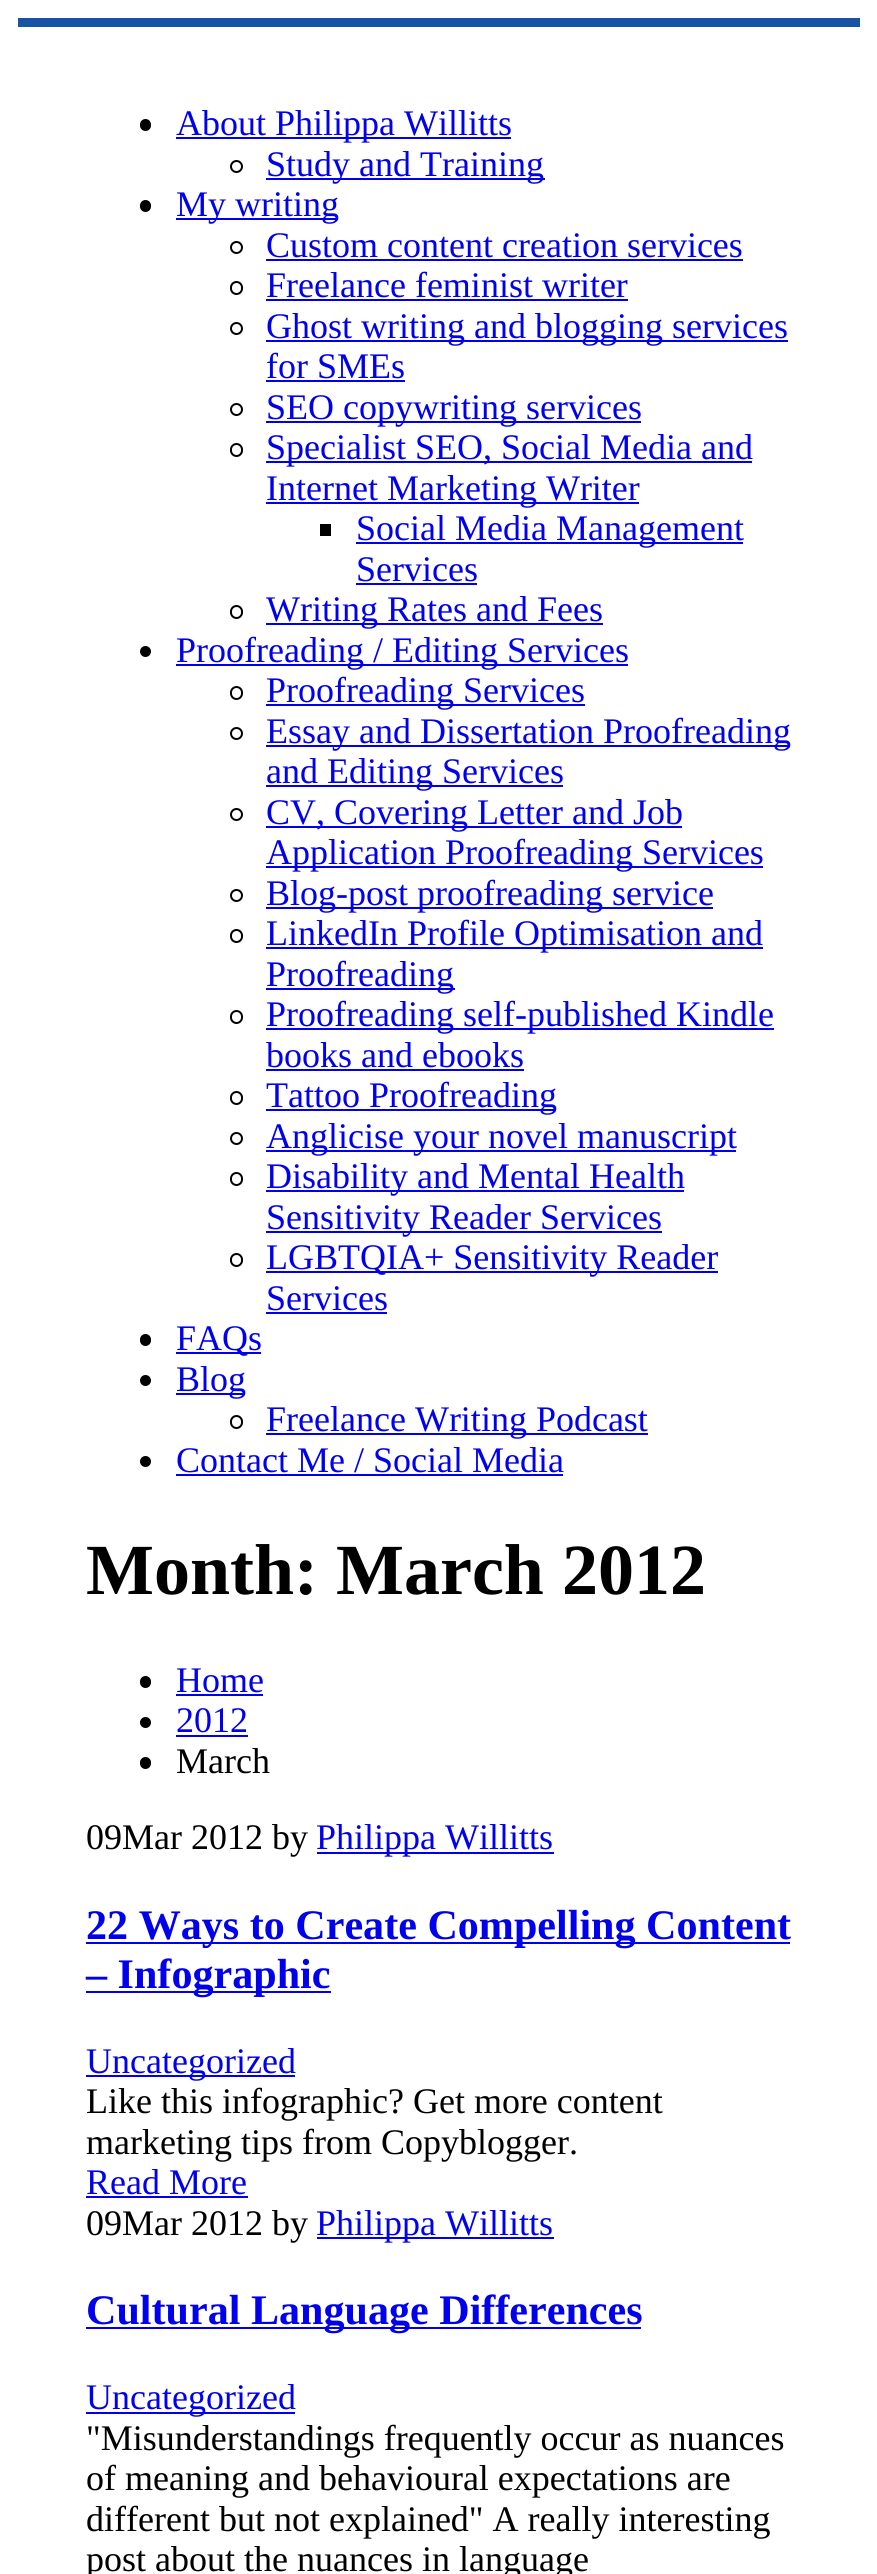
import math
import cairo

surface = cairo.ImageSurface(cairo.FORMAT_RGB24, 877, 2574)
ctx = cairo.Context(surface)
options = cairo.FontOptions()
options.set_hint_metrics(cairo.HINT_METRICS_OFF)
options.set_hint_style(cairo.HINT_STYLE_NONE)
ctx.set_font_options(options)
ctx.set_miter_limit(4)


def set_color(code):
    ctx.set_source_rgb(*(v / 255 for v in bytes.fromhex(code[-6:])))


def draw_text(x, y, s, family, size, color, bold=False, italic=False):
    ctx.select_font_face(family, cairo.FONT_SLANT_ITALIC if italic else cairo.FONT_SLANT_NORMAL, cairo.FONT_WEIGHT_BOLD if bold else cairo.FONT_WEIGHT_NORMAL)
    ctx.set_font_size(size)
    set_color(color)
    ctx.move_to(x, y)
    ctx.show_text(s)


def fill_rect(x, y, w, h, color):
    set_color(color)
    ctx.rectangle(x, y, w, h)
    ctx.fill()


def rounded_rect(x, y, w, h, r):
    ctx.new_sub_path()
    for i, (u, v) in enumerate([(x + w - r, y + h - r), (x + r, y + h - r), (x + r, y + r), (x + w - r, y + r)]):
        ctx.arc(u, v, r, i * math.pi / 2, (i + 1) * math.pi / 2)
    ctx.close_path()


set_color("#ffffff")
ctx.paint()
fill_rect(18, 18, 842, 9, "#1854a3")
set_color("#000000")
rounded_rect(140, 119, 11, 12, 5.5)
ctx.fill()
fill_rect(176, 137, 335, 2, "#0000ee")
draw_text(176, 135, "About Philippa Willitts", "Liberation Serif", 36, "#0000ee")
ctx.new_path()
ctx.arc(236.5, 166.5, 5.5, 0, 2 * math.pi)
set_color("#000000")
ctx.stroke()
fill_rect(266, 178, 279, 2, "#0000ee")
draw_text(266, 176, "Study and Training", "Liberation Serif", 36, "#0000ee")
set_color("#000000")
rounded_rect(140, 200, 11, 12, 5.5)
ctx.fill()
fill_rect(176, 218, 162, 2, "#0000ee")
draw_text(176, 216, "My writing", "Liberation Serif", 36, "#0000ee")
ctx.new_path()
ctx.arc(236.5, 247.5, 5.5, 0, 2 * math.pi)
set_color("#000000")
ctx.stroke()
draw_text(266, 257, "Custom content creation services", "Liberation Serif", 36, "#0000ee")
fill_rect(266, 259, 477, 2, "#0000ee")
rounded_rect(231, 282, 11, 12, 5.5)
set_color("#000000")
ctx.stroke()
draw_text(266, 297, "Freelance feminist writer", "Liberation Serif", 36, "#0000ee")
fill_rect(266, 299, 362, 2, "#0000ee")
ctx.new_path()
ctx.arc(236.5, 328.5, 5.5, 0, 2 * math.pi)
set_color("#000000")
ctx.stroke()
fill_rect(266, 340, 522, 2, "#0000ee")
draw_text(266, 338, "Ghost writing and blogging services", "Liberation Serif", 36, "#0000ee")
draw_text(266, 378, "for SMEs", "Liberation Serif", 36, "#0000ee")
fill_rect(266, 380, 139, 2, "#0000ee")
ctx.new_path()
ctx.arc(236.5, 409.5, 5.5, 0, 2 * math.pi)
set_color("#000000")
ctx.stroke()
fill_rect(266, 421, 375, 2, "#0000ee")
draw_text(266, 419, "SEO copywriting services", "Liberation Serif", 36, "#0000ee")
rounded_rect(231, 444, 11, 12, 5.5)
set_color("#000000")
ctx.stroke()
fill_rect(266, 461, 486, 2, "#0000ee")
draw_text(266, 459, "Specialist SEO, Social Media and", "Liberation Serif", 36, "#0000ee")
fill_rect(266, 502, 373, 2, "#0000ee")
draw_text(266, 500, "Internet Marketing Writer", "Liberation Serif", 36, "#0000ee")
fill_rect(320, 524, 11, 12, "#000000")
fill_rect(356, 542, 387, 2, "#0000ee")
draw_text(356, 540, "Social Media Management", "Liberation Serif", 36, "#0000ee")
draw_text(356, 581, "Services", "Liberation Serif", 36, "#0000ee")
fill_rect(356, 583, 121, 2, "#0000ee")
rounded_rect(231, 606, 11, 12, 5.5)
set_color("#000000")
ctx.stroke()
fill_rect(266, 623, 337, 2, "#0000ee")
draw_text(266, 621, "Writing Rates and Fees", "Liberation Serif", 36, "#0000ee")
set_color("#000000")
ctx.new_path()
ctx.arc(145.5, 651.5, 5.5, 0, 2 * math.pi)
ctx.fill()
fill_rect(176, 664, 452, 2, "#0000ee")
draw_text(176, 662, "Proofreading / Editing Services", "Liberation Serif", 36, "#0000ee")
rounded_rect(231, 687, 11, 12, 5.5)
set_color("#000000")
ctx.stroke()
fill_rect(266, 704, 319, 2, "#0000ee")
draw_text(266, 702, "Proofreading Services", "Liberation Serif", 36, "#0000ee")
ctx.new_path()
ctx.arc(236.5, 733.5, 5.5, 0, 2 * math.pi)
set_color("#000000")
ctx.stroke()
fill_rect(266, 745, 524, 2, "#0000ee")
draw_text(266, 743, "Essay and Dissertation Proofreading", "Liberation Serif", 36, "#0000ee")
fill_rect(266, 785, 297, 2, "#0000ee")
draw_text(266, 783, "and Editing Services", "Liberation Serif", 36, "#0000ee")
ctx.new_path()
ctx.arc(236.5, 814.5, 5.5, 0, 2 * math.pi)
set_color("#000000")
ctx.stroke()
fill_rect(266, 826, 416, 2, "#0000ee")
draw_text(266, 824, "CV, Covering Letter and Job", "Liberation Serif", 36, "#0000ee")
fill_rect(266, 866, 497, 2, "#0000ee")
draw_text(266, 864, "Application Proofreading Services", "Liberation Serif", 36, "#0000ee")
ctx.new_path()
ctx.arc(236.5, 895.5, 5.5, 0, 2 * math.pi)
set_color("#000000")
ctx.stroke()
fill_rect(266, 907, 447, 2, "#0000ee")
draw_text(266, 905, "Blog-post proofreading service", "Liberation Serif", 36, "#0000ee")
rounded_rect(231, 930, 11, 12, 5.5)
set_color("#000000")
ctx.stroke()
fill_rect(266, 947, 497, 2, "#0000ee")
draw_text(266, 945, "LinkedIn Profile Optimisation and", "Liberation Serif", 36, "#0000ee")
fill_rect(266, 988, 189, 2, "#0000ee")
draw_text(266, 986, "Proofreading", "Liberation Serif", 36, "#0000ee")
rounded_rect(231, 1011, 11, 12, 5.5)
set_color("#000000")
ctx.stroke()
fill_rect(266, 1028, 508, 2, "#0000ee")
draw_text(266, 1026, "Proofreading self-published Kindle", "Liberation Serif", 36, "#0000ee")
draw_text(266, 1067, "books and ebooks", "Liberation Serif", 36, "#0000ee")
fill_rect(266, 1069, 258, 2, "#0000ee")
rounded_rect(231, 1092, 11, 12, 5.5)
set_color("#000000")
ctx.stroke()
fill_rect(266, 1109, 290, 2, "#0000ee")
draw_text(266, 1107, "Tattoo Proofreading", "Liberation Serif", 36, "#0000ee")
ctx.new_path()
ctx.arc(236.5, 1138.5, 5.5, 0, 2 * math.pi)
set_color("#000000")
ctx.stroke()
fill_rect(266, 1150, 470, 2, "#0000ee")
draw_text(266, 1148, "Anglicise your novel manuscript", "Liberation Serif", 36, "#0000ee")
rounded_rect(231, 1173, 11, 12, 5.5)
set_color("#000000")
ctx.stroke()
fill_rect(266, 1190, 418, 2, "#0000ee")
draw_text(266, 1188, "Disability and Mental Health", "Liberation Serif", 36, "#0000ee")
fill_rect(266, 1231, 396, 2, "#0000ee")
draw_text(266, 1229, "Sensitivity Reader Services", "Liberation Serif", 36, "#0000ee")
rounded_rect(231, 1254, 11, 12, 5.5)
set_color("#000000")
ctx.stroke()
fill_rect(266, 1271, 452, 2, "#0000ee")
draw_text(266, 1269, "LGBTQIA+ Sensitivity Reader", "Liberation Serif", 36, "#0000ee")
draw_text(266, 1310, "Services", "Liberation Serif", 36, "#0000ee")
fill_rect(266, 1312, 121, 2, "#0000ee")
set_color("#000000")
rounded_rect(140, 1334, 11, 12, 5.5)
ctx.fill()
fill_rect(176, 1352, 85, 2, "#0000ee")
draw_text(176, 1350, "FAQs", "Liberation Serif", 36, "#0000ee")
set_color("#000000")
ctx.new_path()
ctx.arc(145.5, 1380.5, 5.5, 0, 2 * math.pi)
ctx.fill()
fill_rect(176, 1393, 69, 2, "#0000ee")
draw_text(176, 1391, "Blog", "Liberation Serif", 36, "#0000ee")
rounded_rect(231, 1416, 11, 12, 5.5)
set_color("#000000")
ctx.stroke()
fill_rect(266, 1433, 382, 2, "#0000ee")
draw_text(266, 1431, "Freelance Writing Podcast", "Liberation Serif", 36, "#0000ee")
set_color("#000000")
ctx.new_path()
ctx.arc(145.5, 1461.5, 5.5, 0, 2 * math.pi)
ctx.fill()
draw_text(176, 1472, "Contact Me / Social Media", "Liberation Serif", 36, "#0000ee")
fill_rect(176, 1474, 387, 2, "#0000ee")
draw_text(86, 1594, "Month: March 2012", "Liberation Serif", 72, "#000000", bold=True)
rounded_rect(140, 1676, 11, 12, 5.5)
ctx.fill()
draw_text(176, 1692, "Home", "Liberation Serif", 36, "#0000ee")
fill_rect(176, 1694, 87, 2, "#0000ee")
set_color("#000000")
ctx.new_path()
ctx.arc(145.5, 1722.5, 5.5, 0, 2 * math.pi)
ctx.fill()
draw_text(176, 1732, "2012", "Liberation Serif", 36, "#0000ee")
fill_rect(176, 1735, 72, 2, "#0000ee")
set_color("#000000")
rounded_rect(140, 1757, 11, 12, 5.5)
ctx.fill()
draw_text(176, 1773, "March", "Liberation Serif", 36, "#000000")
draw_text(86, 1849, "09Mar 2012 by", "Liberation Serif", 36, "#000000")
fill_rect(317, 1852, 237, 2, "#0000ee")
draw_text(316, 1849, "Philippa Willitts", "Liberation Serif", 36, "#0000ee")
fill_rect(86, 1942, 704, 2, "#0000ee")
draw_text(86, 1939, "22 Ways to Create Compelling Content", "Liberation Serif", 42.1, "#0000ee", bold=True)
fill_rect(86, 1991, 245, 2, "#0000ee")
draw_text(86, 1988, "– Infographic", "Liberation Serif", 42.1, "#0000ee", bold=True)
fill_rect(86, 2075, 209, 2, "#0000ee")
draw_text(86, 2073, "Uncategorized", "Liberation Serif", 36, "#0000ee")
draw_text(86, 2113, "Like this infographic? Get more content", "Liberation Serif", 36, "#000000")
draw_text(86, 2154, "marketing tips from Copyblogger.", "Liberation Serif", 36, "#000000")
draw_text(86, 2194, "Read More", "Liberation Serif", 36, "#0000ee")
fill_rect(86, 2196, 162, 2, "#0000ee")
draw_text(86, 2235, "09Mar 2012 by", "Liberation Serif", 36, "#000000")
fill_rect(317, 2237, 237, 2, "#0000ee")
draw_text(316, 2235, "Philippa Willitts", "Liberation Serif", 36, "#0000ee")
fill_rect(86, 2327, 555, 2, "#0000ee")
draw_text(86, 2324, "Cultural Language Differences", "Liberation Serif", 42.1, "#0000ee", bold=True)
fill_rect(86, 2412, 209, 2, "#0000ee")
draw_text(86, 2409, "Uncategorized", "Liberation Serif", 36, "#0000ee")
draw_text(86, 2450, "\"Misunderstandings frequently occur as nuances", "Liberation Serif", 36, "#000000")
draw_text(86, 2490, "of meaning and behavioural expectations are", "Liberation Serif", 36, "#000000")
draw_text(86, 2531, "different but not explained\" A really interesting", "Liberation Serif", 36, "#000000")
draw_text(86, 2571, "post about the nuances in language", "Liberation Serif", 36, "#000000")
surface.write_to_png("output.png")
